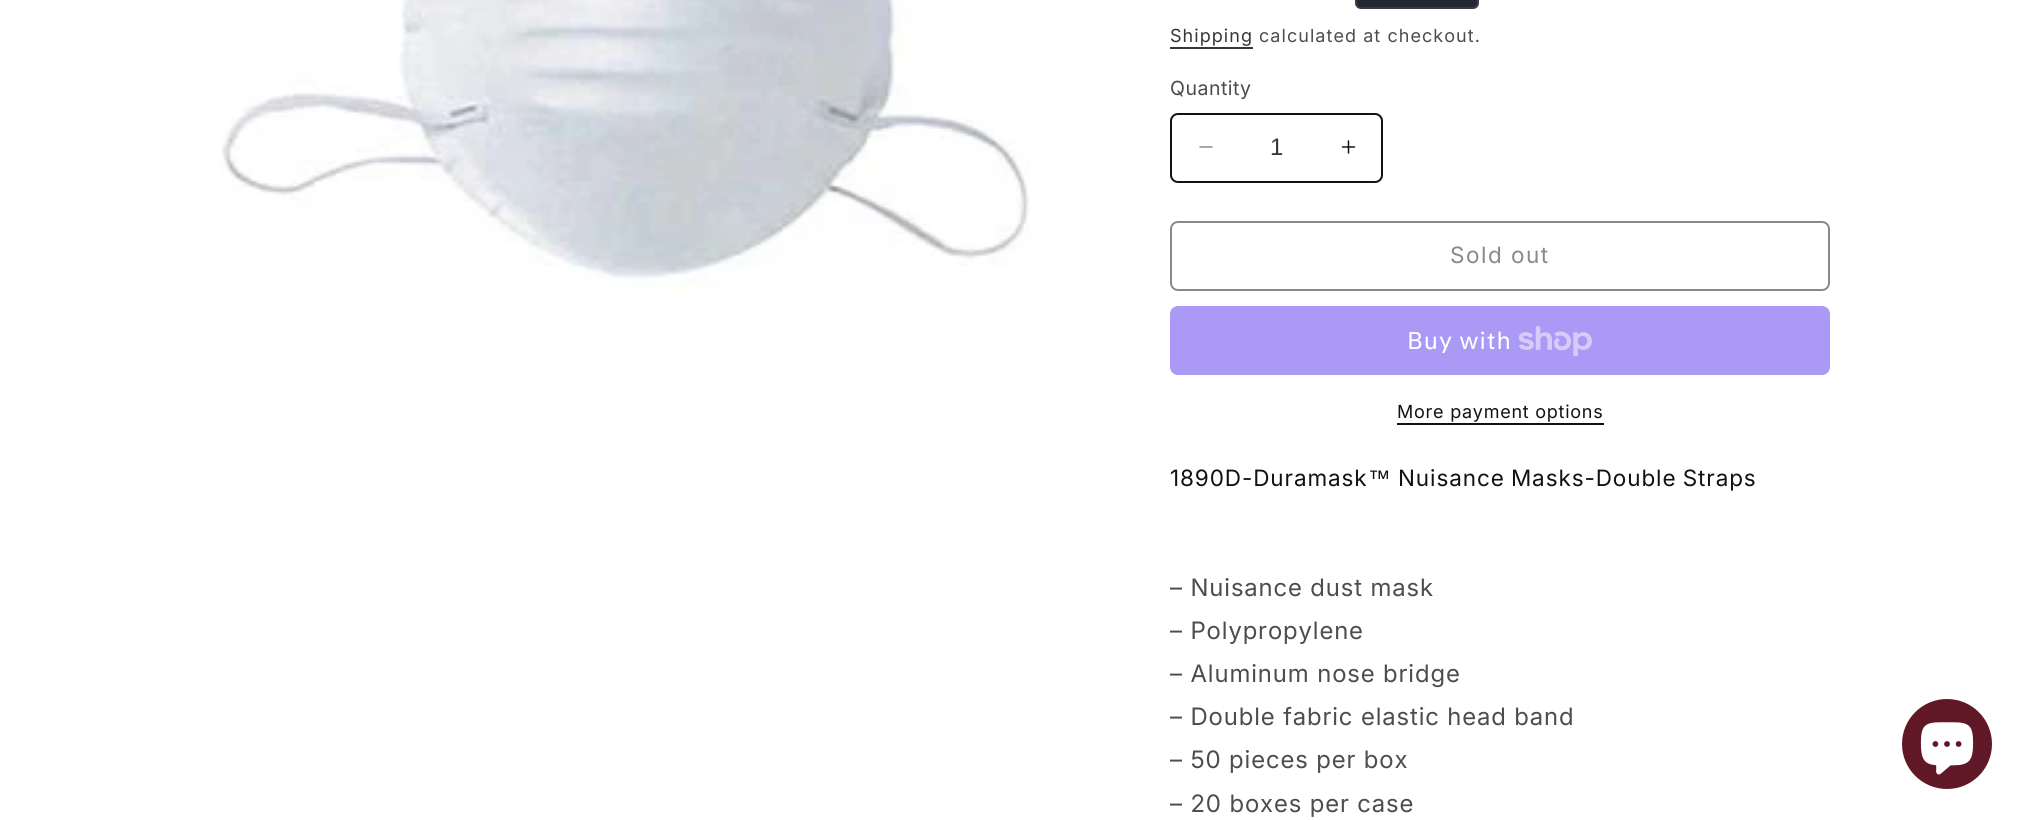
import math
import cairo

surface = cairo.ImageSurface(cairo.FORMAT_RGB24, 2025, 820)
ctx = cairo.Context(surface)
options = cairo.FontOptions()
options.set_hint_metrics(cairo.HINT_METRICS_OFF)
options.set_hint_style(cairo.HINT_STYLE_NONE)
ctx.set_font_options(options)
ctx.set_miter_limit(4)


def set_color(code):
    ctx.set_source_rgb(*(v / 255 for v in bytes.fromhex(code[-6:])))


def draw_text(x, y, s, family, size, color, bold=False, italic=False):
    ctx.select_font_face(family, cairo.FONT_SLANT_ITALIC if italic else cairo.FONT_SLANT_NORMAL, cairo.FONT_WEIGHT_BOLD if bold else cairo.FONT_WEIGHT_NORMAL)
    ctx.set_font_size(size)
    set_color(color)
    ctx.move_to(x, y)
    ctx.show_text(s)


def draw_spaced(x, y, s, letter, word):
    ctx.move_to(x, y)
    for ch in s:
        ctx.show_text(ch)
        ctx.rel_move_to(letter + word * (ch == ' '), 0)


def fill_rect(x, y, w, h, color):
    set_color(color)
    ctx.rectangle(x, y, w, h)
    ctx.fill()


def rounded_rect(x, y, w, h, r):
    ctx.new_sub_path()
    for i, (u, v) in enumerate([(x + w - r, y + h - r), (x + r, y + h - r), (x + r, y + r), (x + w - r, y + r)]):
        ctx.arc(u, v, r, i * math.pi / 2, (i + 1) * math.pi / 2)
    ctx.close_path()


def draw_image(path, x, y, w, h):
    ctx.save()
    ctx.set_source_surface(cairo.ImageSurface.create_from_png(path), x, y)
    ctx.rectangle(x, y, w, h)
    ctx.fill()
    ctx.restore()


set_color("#ffffff")
ctx.paint()
draw_image("assets/img1.png", 220, 0, 810, 294)
set_color("#242833")
rounded_rect(1355, -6, 124, 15, 6)
ctx.fill()
rounded_rect(1356, -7, 122, 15, 5)
ctx.set_source_rgba(1, 1, 1, 0.1)
ctx.stroke()
ctx.select_font_face("Inter")
ctx.set_font_size(18)
set_color("#363636")
draw_spaced(1170, 42, "Shipping", 1.05, 0)
fill_rect(1170, 47, 83, 2, "#363636")
set_color("#4d4d4d")
draw_spaced(1259, 42, "calculated at checkout.", 1.05, 0)
ctx.set_font_size(19.5)
draw_spaced(1170, 95, "Quantity", 0.5, 0)
draw_image("assets/img2.png", 1199, 146, 14, 2)
draw_image("assets/img3.png", 1341, 140, 15, 14)
rounded_rect(1171, 114, 211, 68, 7)
set_color("#121212")
ctx.stroke()
draw_text(1270, 155, "1", "Liberation Sans", 24, "#363636")
rounded_rect(1171, 222, 658, 68, 7)
set_color("#898989")
ctx.stroke()
ctx.select_font_face("Inter")
ctx.set_font_size(22.5)
draw_spaced(1450, 263, "Sold out", 1.5, 0)
set_color("#aa99f5")
rounded_rect(1170, 306, 660, 69, 8)
ctx.fill()
ctx.select_font_face("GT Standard")
ctx.set_font_size(24)
set_color("#ffffff")
draw_spaced(1407, 349, "Buy with", 0.9, 0)
draw_image("assets/img4.png", 1518, 326, 74, 30)
ctx.select_font_face("Inter")
ctx.set_font_size(18)
set_color("#121212")
draw_spaced(1397, 418, "More payment options", 0.75, 0)
fill_rect(1397, 423, 207, 2, "#121212")
ctx.set_font_size(22.5)
draw_spaced(1170, 486, "1890D-Duramask", 0.9, 0)
ctx.select_font_face("Liberation Sans")
draw_spaced(1368, 486, "™", 0.9, 0)
ctx.select_font_face("Inter")
draw_spaced(1398, 486, "Nuisance Masks-Double Straps", 0.9, -1)
ctx.select_font_face("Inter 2")
ctx.set_font_size(24)
set_color("#4d4d4d")
draw_spaced(1170, 596, "– Nuisance dust mask", 0.9, 0)
draw_spaced(1170, 639, "– Polypropylene", 0.9, 0)
draw_spaced(1170, 682, "– Aluminum nose bridge", 0.9, 0)
draw_spaced(1170, 725, "– Double fabric elastic head band", 0.9, 0)
draw_spaced(1170, 768, "– 50 pieces per box", 0.9, 0)
draw_spaced(1170, 812, "– 20 boxes per case", 0.9, 0)
set_color("#601826")
ctx.new_path()
ctx.arc(1947, 744, 45, 0, 2 * math.pi)
ctx.fill()
draw_image("assets/img5.png", 1920, 722, 54, 53)
surface.write_to_png("output.png")
